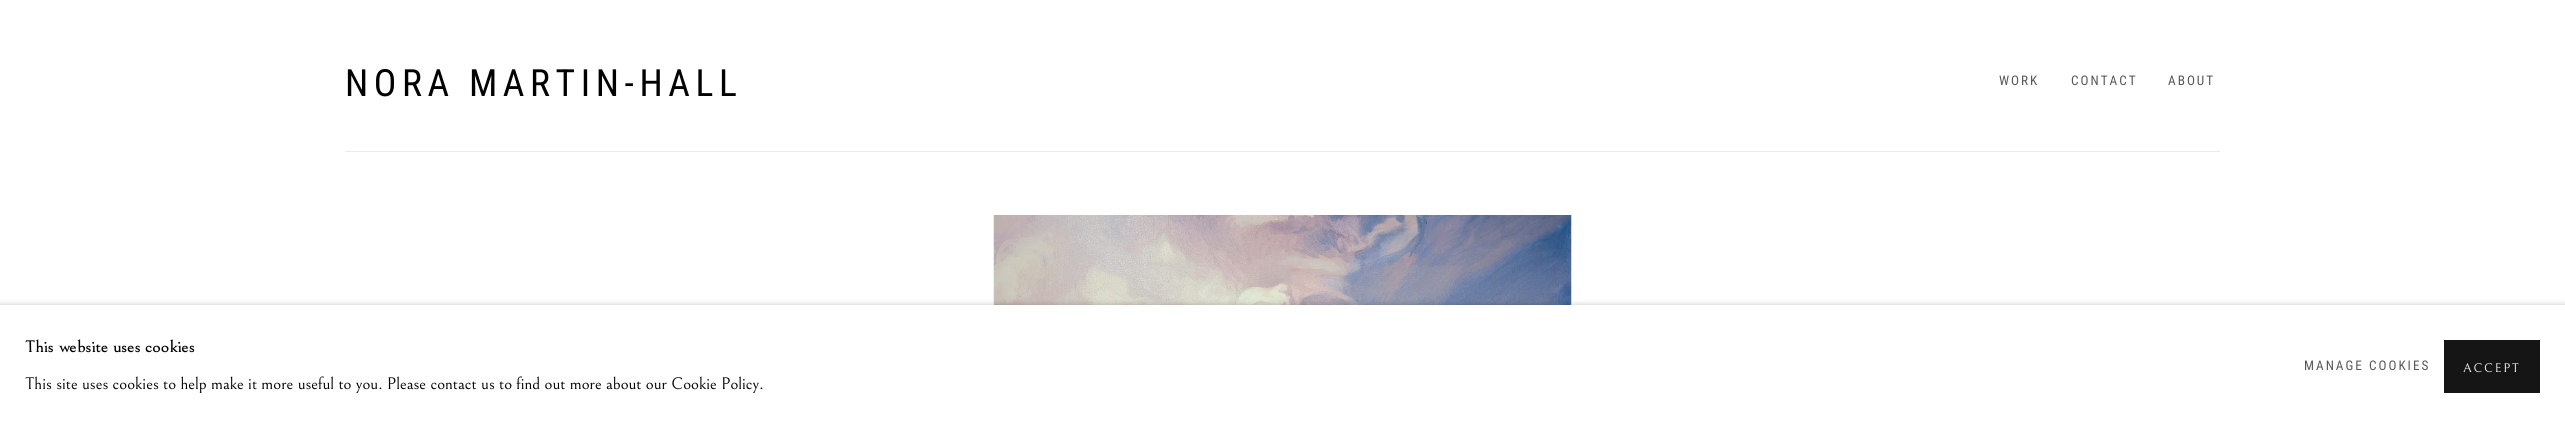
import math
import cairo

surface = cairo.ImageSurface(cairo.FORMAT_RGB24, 2565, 428)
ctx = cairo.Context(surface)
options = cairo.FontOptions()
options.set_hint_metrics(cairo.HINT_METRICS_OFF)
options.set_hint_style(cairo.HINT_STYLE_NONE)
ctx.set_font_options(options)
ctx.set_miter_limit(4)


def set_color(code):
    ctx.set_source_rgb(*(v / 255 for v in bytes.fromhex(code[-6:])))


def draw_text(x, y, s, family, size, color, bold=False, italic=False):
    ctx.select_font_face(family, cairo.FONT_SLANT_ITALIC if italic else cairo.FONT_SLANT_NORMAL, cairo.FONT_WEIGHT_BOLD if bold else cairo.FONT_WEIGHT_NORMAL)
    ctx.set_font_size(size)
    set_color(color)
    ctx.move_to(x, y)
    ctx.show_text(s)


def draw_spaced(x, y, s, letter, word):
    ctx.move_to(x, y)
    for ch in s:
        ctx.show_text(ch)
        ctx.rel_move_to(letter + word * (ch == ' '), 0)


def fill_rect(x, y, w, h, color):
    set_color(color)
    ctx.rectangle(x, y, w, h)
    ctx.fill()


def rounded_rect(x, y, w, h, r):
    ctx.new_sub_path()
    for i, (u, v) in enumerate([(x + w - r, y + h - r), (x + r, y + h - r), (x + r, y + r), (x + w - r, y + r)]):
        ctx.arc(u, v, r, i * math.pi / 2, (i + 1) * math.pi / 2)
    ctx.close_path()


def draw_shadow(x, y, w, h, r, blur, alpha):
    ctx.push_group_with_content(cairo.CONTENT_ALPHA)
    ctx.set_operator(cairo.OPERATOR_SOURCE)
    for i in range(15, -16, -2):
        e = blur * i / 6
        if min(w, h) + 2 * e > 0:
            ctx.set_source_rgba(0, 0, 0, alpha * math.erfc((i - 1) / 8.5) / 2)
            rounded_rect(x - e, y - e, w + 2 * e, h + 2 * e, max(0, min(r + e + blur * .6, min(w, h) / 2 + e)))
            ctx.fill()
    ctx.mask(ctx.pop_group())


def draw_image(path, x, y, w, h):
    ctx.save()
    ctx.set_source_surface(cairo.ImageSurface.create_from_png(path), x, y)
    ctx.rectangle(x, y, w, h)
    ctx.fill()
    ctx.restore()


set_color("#ffffff")
ctx.paint()
fill_rect(345, 151, 1875, 1, "#ebebeb")
ctx.select_font_face("Roboto Condensed")
ctx.set_font_size(37.5)
set_color("#010101")
draw_spaced(345, 96, "NORA MARTIN-HALL", 5.6, 0)
ctx.set_font_size(13.25)
set_color("#585858")
draw_spaced(1999, 85, "WORK", 2, 0)
draw_spaced(2071, 85, "CONTACT", 2, 0)
draw_spaced(2168, 85, "ABOUT", 2, 0)
draw_image("assets/img1.png", 993, 215, 579, 90)
set_color("#000000")
draw_shadow(0, 305, 2565, 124, 0, 3, 0.23)
fill_rect(0, 305, 2565, 123, "#ffffff")
draw_text(25, 352, "This website uses cookies", "Bellefair Medium", 15.4, "#010101")
draw_text(25, 389, "This site uses cookies to help make it more useful to you. Please contact us to find out more about our Cookie Policy.", "Bellefair", 15.4, "#010101")
ctx.select_font_face("Roboto Condensed")
ctx.set_font_size(13.25)
set_color("#585858")
draw_spaced(2304, 370, "MANAGE COOKIES", 2, 0)
fill_rect(2444, 340, 96, 53, "#151515")
ctx.select_font_face("Bellefair")
ctx.set_font_size(11.5)
set_color("#ffffff")
draw_spaced(2463, 372, "ACCEPT", 1.75, 0)
surface.write_to_png("output.png")
